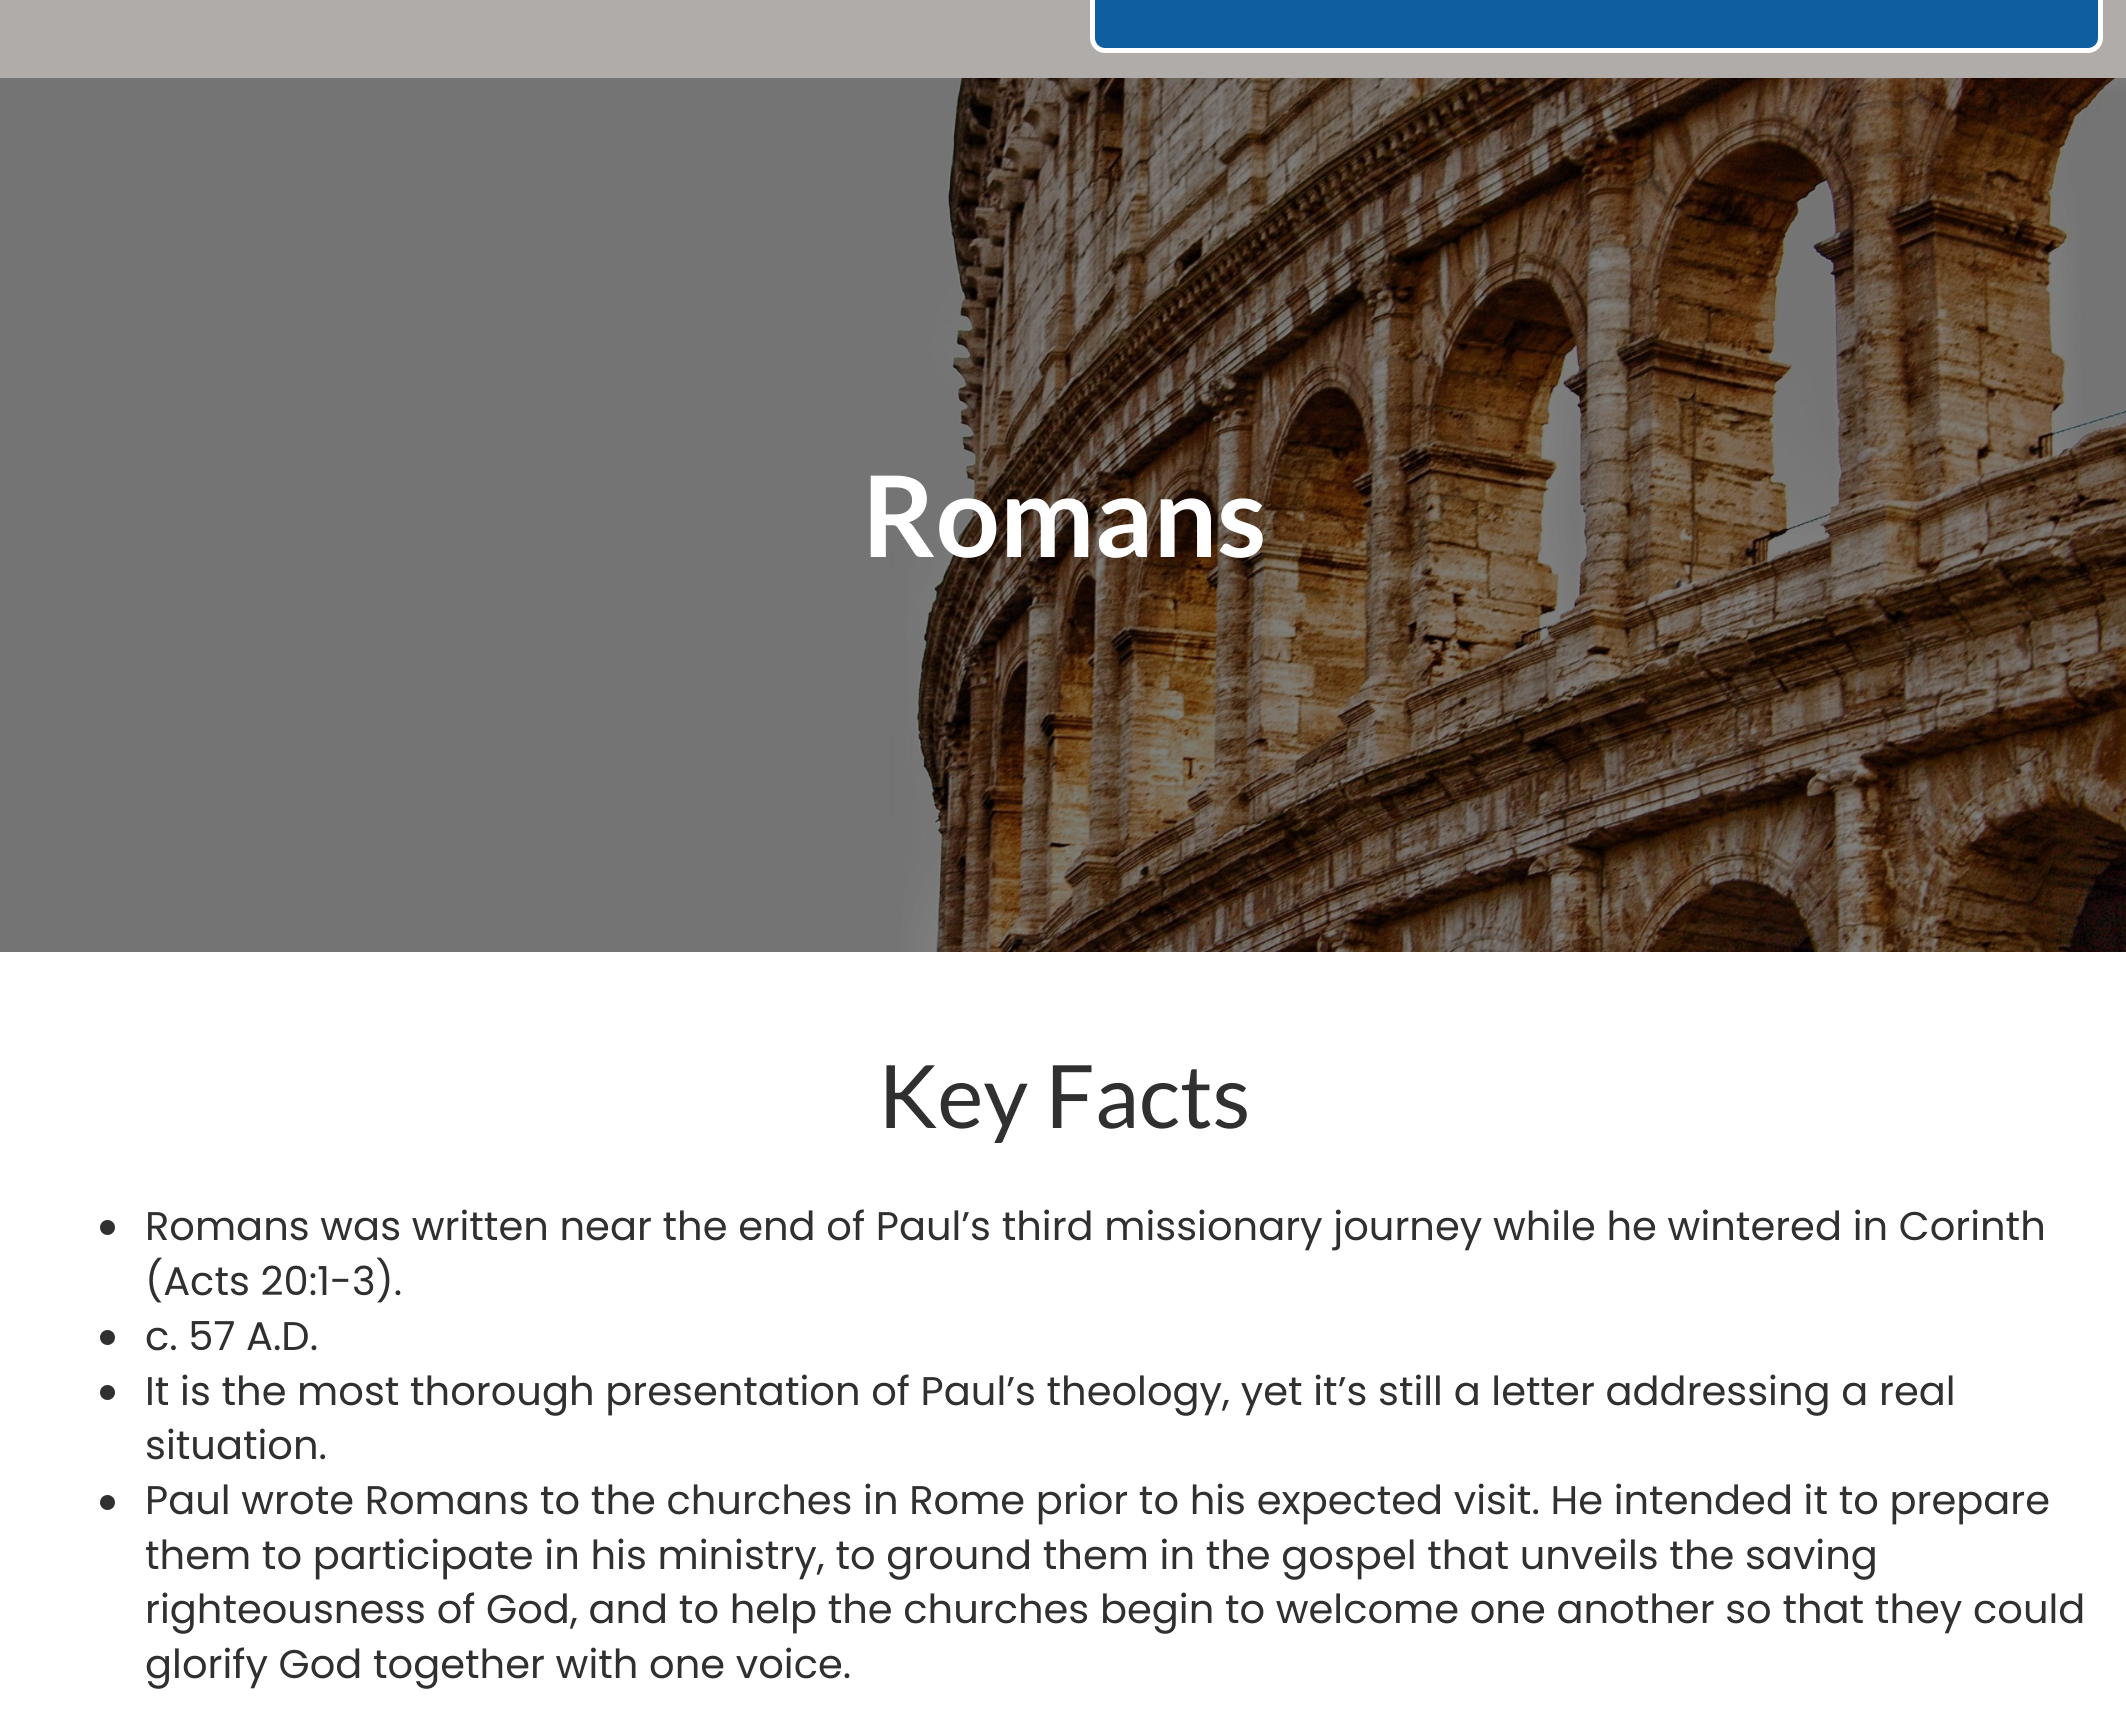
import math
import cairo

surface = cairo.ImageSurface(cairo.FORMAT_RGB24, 2126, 1734)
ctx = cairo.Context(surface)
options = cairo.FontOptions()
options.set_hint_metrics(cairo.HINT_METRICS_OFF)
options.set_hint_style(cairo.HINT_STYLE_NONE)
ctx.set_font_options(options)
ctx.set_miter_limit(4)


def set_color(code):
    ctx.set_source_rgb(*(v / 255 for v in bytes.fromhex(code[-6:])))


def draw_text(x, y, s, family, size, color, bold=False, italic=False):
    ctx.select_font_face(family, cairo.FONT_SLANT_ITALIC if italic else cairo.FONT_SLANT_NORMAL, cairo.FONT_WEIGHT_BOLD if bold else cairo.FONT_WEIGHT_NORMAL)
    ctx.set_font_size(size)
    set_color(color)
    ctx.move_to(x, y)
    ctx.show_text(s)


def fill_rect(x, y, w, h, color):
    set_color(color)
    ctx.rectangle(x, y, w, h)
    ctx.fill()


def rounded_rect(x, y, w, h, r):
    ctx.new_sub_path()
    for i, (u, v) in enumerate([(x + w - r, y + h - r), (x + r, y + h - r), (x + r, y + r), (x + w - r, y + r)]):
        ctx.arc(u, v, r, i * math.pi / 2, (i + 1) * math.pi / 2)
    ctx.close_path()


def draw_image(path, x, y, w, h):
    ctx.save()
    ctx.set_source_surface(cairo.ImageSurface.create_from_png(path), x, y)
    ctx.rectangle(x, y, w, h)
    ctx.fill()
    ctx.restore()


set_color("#ffffff")
ctx.paint()
fill_rect(0, 0, 2126, 78, "#afaca9")
set_color("#0f5ea0")
rounded_rect(1092.5, -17.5, 1008, 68, 12.5)
ctx.fill_preserve()
set_color("#ffffff")
ctx.set_line_width(5)
ctx.stroke()
draw_image("assets/img1.png", 0, 78, 2126, 874)
draw_text(862, 557, "Romans", "Lato", 112.5, "#ffffff", bold=True)
draw_text(878, 1128, "Key Facts", "Lato", 87.5, "#303030")
ctx.new_path()
ctx.arc(107.5, 1227.5, 7.5, 0, 2 * math.pi)
ctx.fill()
draw_text(145, 1240, "Romans was written near the end of Paul’s third missionary journey while he wintered in Corinth", "Poppins", 40, "#303030")
draw_text(145, 1295, "(Acts 20:1-3).", "Poppins", 40, "#303030")
ctx.new_path()
ctx.arc(107.5, 1337.5, 7.5, 0, 2 * math.pi)
ctx.fill()
draw_text(145, 1350, "c. 57 A.D.", "Poppins", 40, "#303030")
ctx.new_path()
ctx.arc(107.5, 1392.5, 7.5, 0, 2 * math.pi)
ctx.fill()
draw_text(145, 1405, "It is the most thorough presentation of Paul’s theology, yet it’s still a letter addressing a real", "Poppins", 40, "#303030")
draw_text(145, 1459, "situation.", "Poppins", 40, "#303030")
ctx.new_path()
ctx.arc(107.5, 1502.5, 7.5, 0, 2 * math.pi)
ctx.fill()
draw_text(145, 1514, "Paul wrote Romans to the churches in Rome prior to his expected visit. He intended it to prepare", "Poppins", 40, "#303030")
draw_text(145, 1569, "them to participate in his ministry, to ground them in the gospel that unveils the saving", "Poppins", 40, "#303030")
draw_text(145, 1623, "righteousness of God, and to help the churches begin to welcome one another so that they could", "Poppins", 40, "#303030")
draw_text(145, 1678, "glorify God together with one voice.", "Poppins", 40, "#303030")
surface.write_to_png("output.png")
